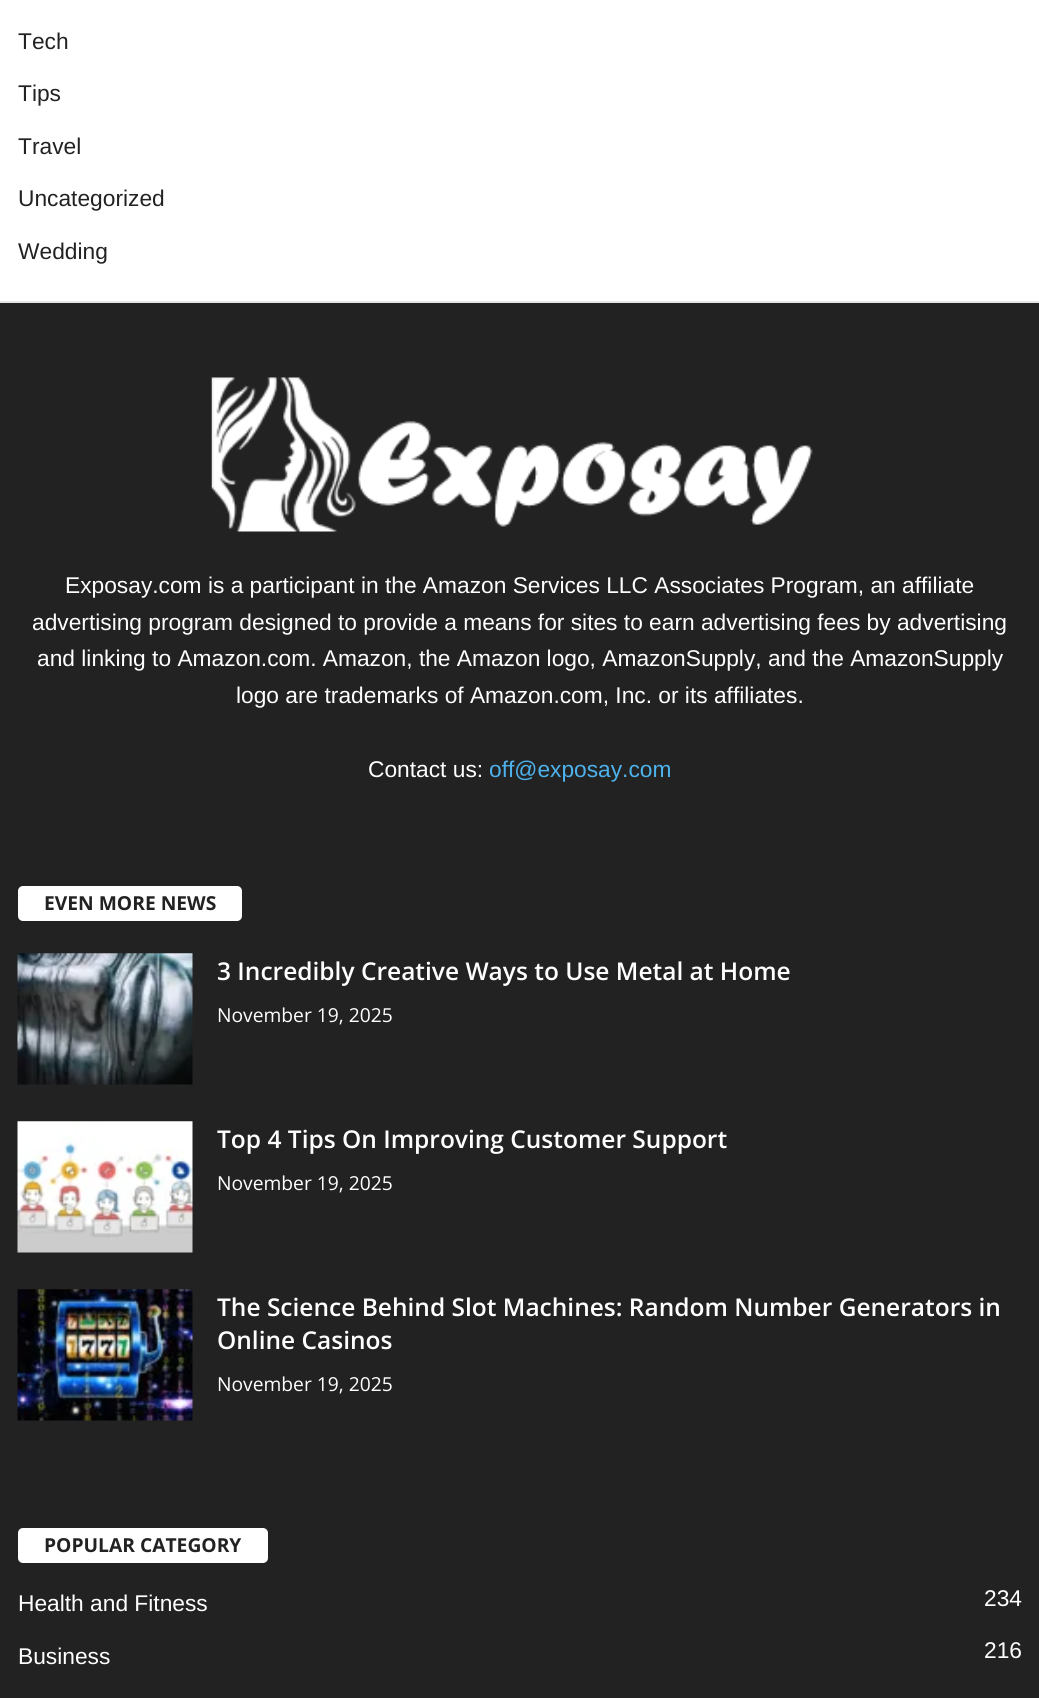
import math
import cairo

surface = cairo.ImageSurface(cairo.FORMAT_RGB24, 1039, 1698)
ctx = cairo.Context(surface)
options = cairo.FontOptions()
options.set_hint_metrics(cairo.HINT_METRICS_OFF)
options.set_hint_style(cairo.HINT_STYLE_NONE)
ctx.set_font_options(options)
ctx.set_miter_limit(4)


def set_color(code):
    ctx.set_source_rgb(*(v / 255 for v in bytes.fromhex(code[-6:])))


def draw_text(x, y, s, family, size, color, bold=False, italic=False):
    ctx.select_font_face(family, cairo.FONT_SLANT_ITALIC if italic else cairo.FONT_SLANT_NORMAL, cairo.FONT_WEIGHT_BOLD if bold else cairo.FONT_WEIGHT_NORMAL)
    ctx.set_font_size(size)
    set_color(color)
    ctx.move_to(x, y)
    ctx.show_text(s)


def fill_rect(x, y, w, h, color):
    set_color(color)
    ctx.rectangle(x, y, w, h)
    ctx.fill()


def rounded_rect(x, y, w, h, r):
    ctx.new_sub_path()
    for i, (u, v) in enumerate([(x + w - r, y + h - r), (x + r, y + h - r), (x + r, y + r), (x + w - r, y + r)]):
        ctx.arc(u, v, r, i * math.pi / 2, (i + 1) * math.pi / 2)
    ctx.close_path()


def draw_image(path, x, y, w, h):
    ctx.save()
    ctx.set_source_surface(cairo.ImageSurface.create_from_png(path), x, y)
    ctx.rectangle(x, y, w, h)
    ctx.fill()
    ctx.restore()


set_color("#222222")
ctx.paint()
fill_rect(0, 0, 1039, 301, "#ffffff")
fill_rect(0, 301, 1039, 2, "#e6e6e6")
draw_text(18, 49, "Tech", "Liberation Sans", 22.75, "#222222")
draw_text(18, 101, "Tips", "Liberation Sans", 22.75, "#222222")
draw_text(18, 154, "Travel", "Liberation Sans", 22.75, "#222222")
draw_text(18, 206, "Uncategorized", "Liberation Sans", 22.75, "#222222")
draw_text(18, 259, "Wedding", "Liberation Sans", 22.75, "#222222")
draw_image("assets/img1.png", 211, 377, 602, 155)
draw_text(65, 593, "Exposay.com is a participant in the Amazon Services LLC Associates Program, an affiliate", "Liberation Sans", 22.75, "#ffffff")
draw_text(32, 630, "advertising program designed to provide a means for sites to earn advertising fees by advertising", "Liberation Sans", 22.75, "#ffffff")
draw_text(37, 666, "and linking to Amazon.com. Amazon, the Amazon logo, AmazonSupply, and the AmazonSupply", "Liberation Sans", 22.75, "#ffffff")
draw_text(236, 703, "logo are trademarks of Amazon.com, Inc. or its affiliates.", "Liberation Sans", 22.75, "#ffffff")
draw_text(368, 777, "Contact us:", "Liberation Sans", 22.75, "#ffffff")
draw_text(489, 777, "off@exposay.com", "Liberation Sans", 22.75, "#4db2ec")
set_color("#ffffff")
rounded_rect(18, 886, 224, 35, 5)
ctx.fill()
draw_text(44, 910, "EVEN MORE NEWS", "Open Sans", 19.25, "#222222", bold=True)
draw_image("assets/img2.png", 17, 953, 176, 132)
draw_text(217, 980, "3 Incredibly Creative Ways to Use Metal at Home", "Open Sans SemiBold", 24.5, "#ffffff")
draw_text(217, 1022, "November 19, 2025", "Open Sans", 19.25, "#ffffff")
draw_image("assets/img3.png", 17, 1121, 176, 132)
draw_text(217, 1148, "Top 4 Tips On Improving Customer Support", "Open Sans SemiBold", 24.5, "#ffffff")
draw_text(217, 1190, "November 19, 2025", "Open Sans", 19.25, "#ffffff")
draw_image("assets/img4.png", 17, 1289, 176, 132)
draw_text(217, 1316, "The Science Behind Slot Machines: Random Number Generators in", "Open Sans SemiBold", 24.5, "#ffffff")
draw_text(217, 1349, "Online Casinos", "Open Sans SemiBold", 24.5, "#ffffff")
draw_text(217, 1391, "November 19, 2025", "Open Sans", 19.25, "#ffffff")
rounded_rect(18, 1528, 250, 35, 5)
ctx.fill()
draw_text(44, 1552, "POPULAR CATEGORY", "Open Sans", 19.25, "#222222", bold=True)
draw_text(18, 1611, "Health and Fitness", "Liberation Sans", 22.75, "#ffffff")
draw_text(984, 1606, "234", "Liberation Sans", 22.75, "#ffffff")
draw_text(18, 1664, "Business", "Liberation Sans", 22.75, "#ffffff")
draw_text(984, 1658, "216", "Liberation Sans", 22.75, "#ffffff")
surface.write_to_png("output.png")
